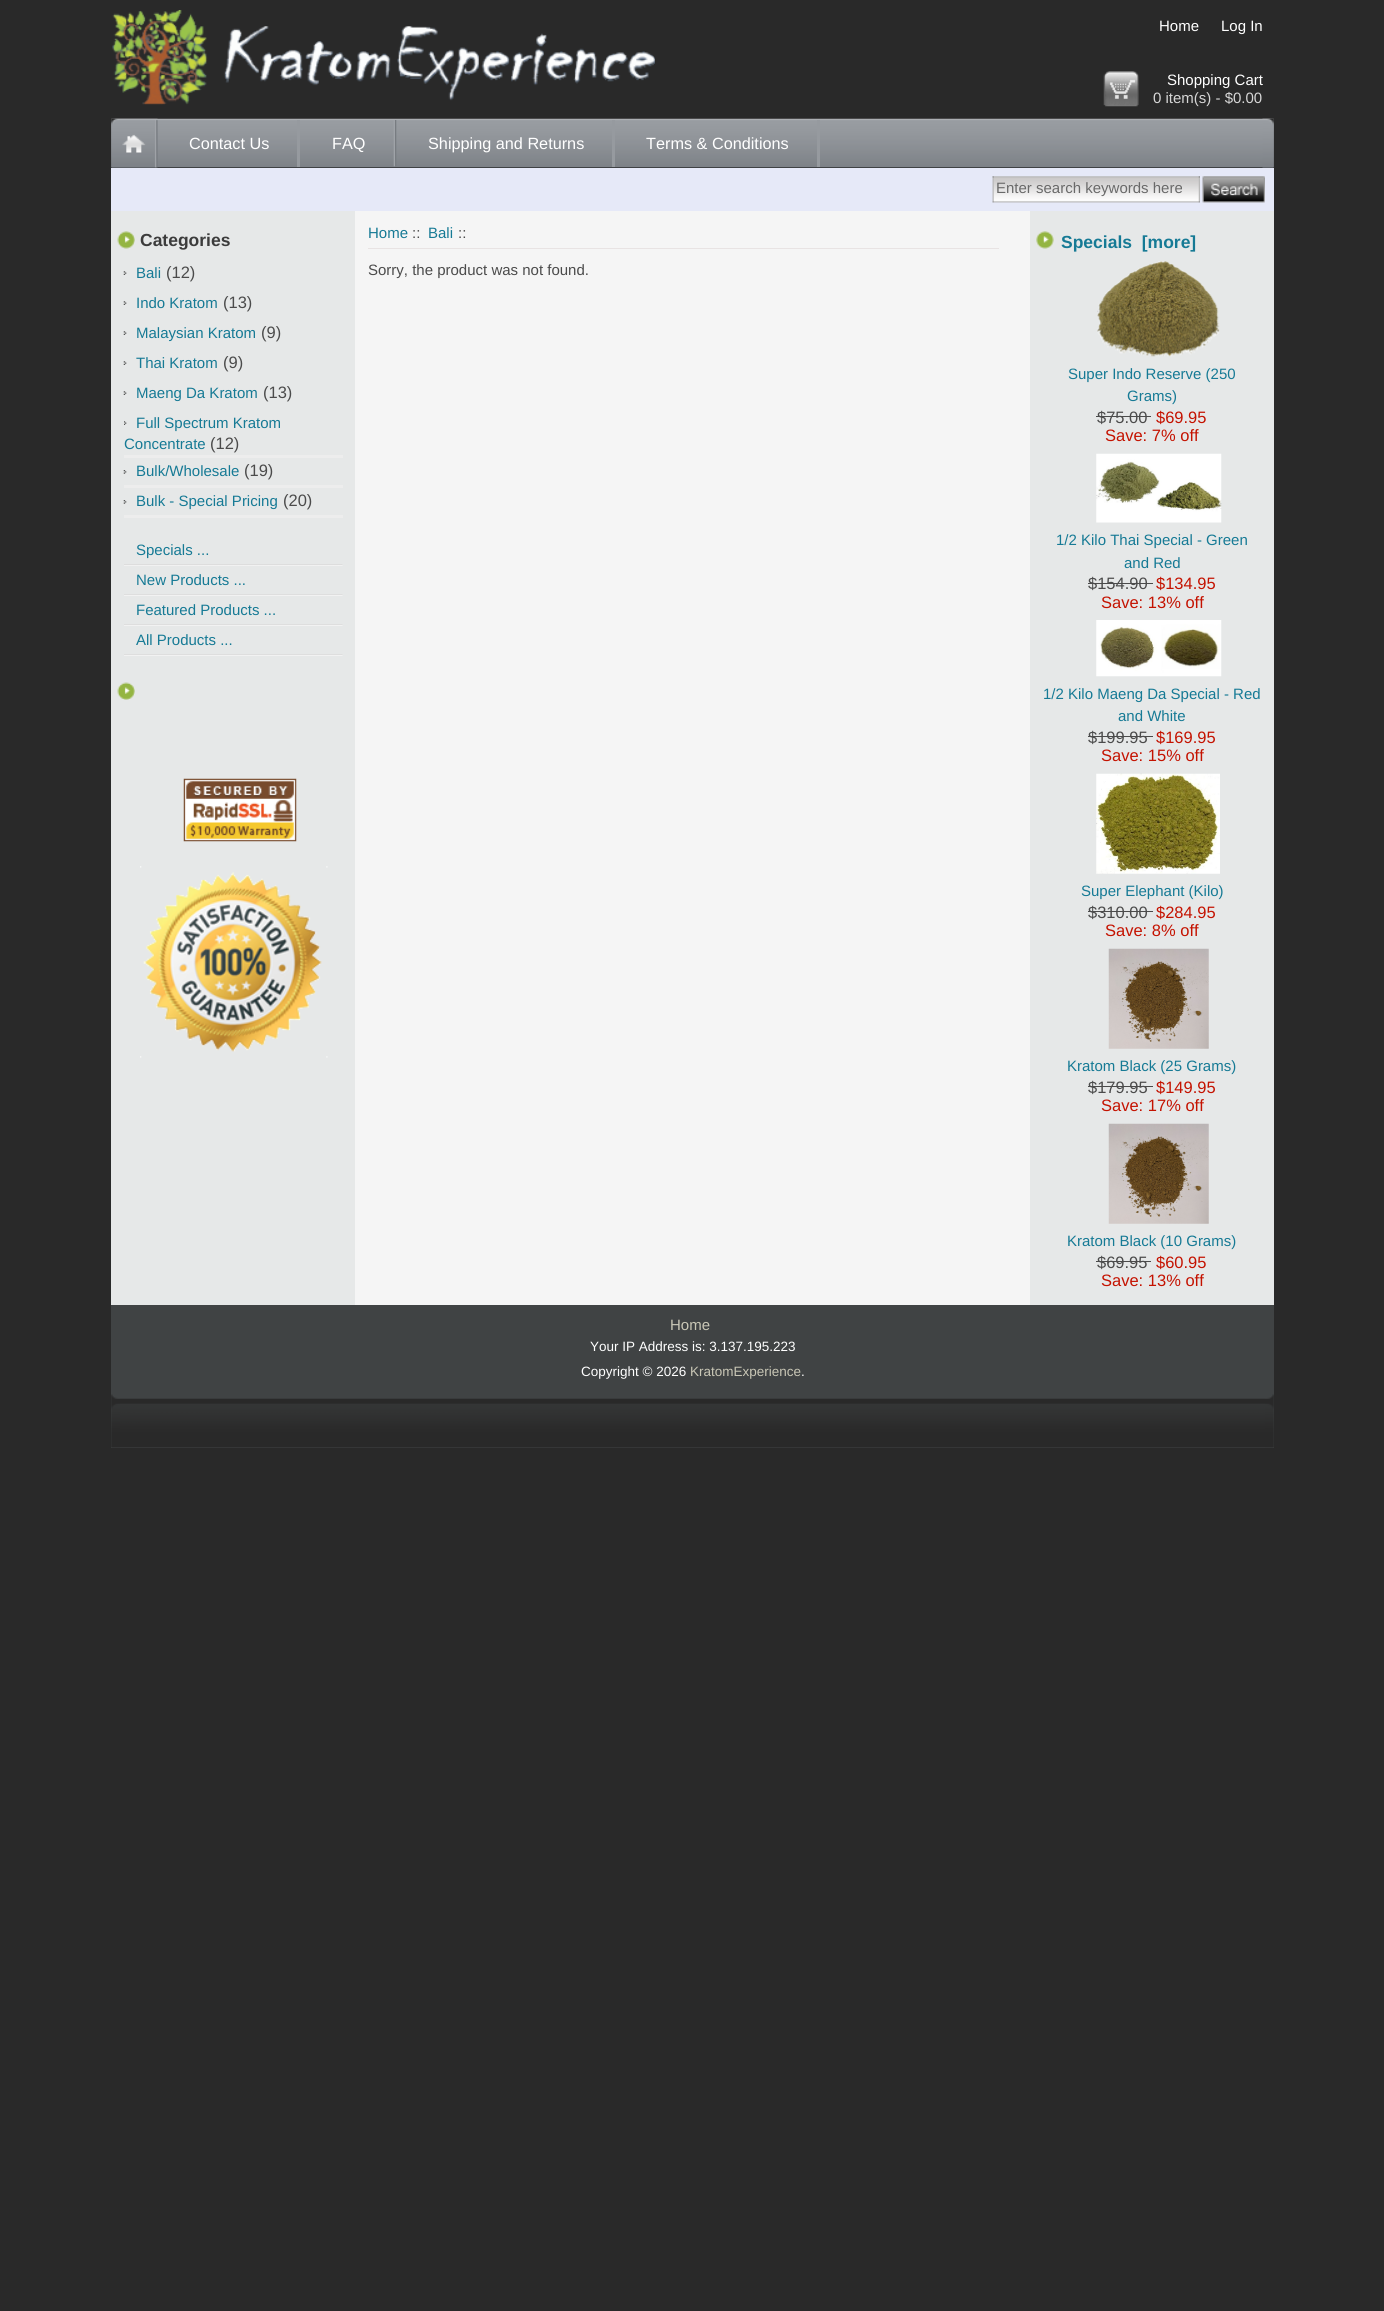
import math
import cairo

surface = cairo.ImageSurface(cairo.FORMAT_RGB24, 1384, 2311)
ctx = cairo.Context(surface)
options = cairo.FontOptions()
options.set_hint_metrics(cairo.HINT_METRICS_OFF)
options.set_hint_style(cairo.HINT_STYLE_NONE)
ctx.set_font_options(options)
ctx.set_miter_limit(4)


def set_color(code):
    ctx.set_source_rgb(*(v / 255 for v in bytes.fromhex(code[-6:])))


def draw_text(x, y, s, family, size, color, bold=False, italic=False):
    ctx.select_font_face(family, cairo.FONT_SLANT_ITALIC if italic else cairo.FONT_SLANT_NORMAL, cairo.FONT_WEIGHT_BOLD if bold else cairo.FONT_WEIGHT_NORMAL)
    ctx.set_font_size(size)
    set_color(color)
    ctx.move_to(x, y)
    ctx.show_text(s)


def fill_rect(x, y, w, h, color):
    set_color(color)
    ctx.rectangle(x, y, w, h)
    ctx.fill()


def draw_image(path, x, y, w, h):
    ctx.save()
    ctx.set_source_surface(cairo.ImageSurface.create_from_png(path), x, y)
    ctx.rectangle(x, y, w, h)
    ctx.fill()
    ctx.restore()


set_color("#292929")
ctx.paint()
fill_rect(355, 211, 675, 1094, "#f5f5f5")
draw_image("assets/img1.png", 112, 10, 543, 95)
draw_text(1159, 31, "Home", "Liberation Sans", 15, "#ffffff")
draw_text(1221, 31, "Log In", "Liberation Sans", 15, "#ffffff")
draw_image("assets/img2.png", 1103, 71, 36, 36)
draw_text(1167, 85, "Shopping Cart", "Liberation Sans", 15, "#ffffff")
draw_text(1153, 103, "0 item(s) - $0.00", "Liberation Sans", 15, "#d7d7d7")
fill_rect(111, 119, 1163, 49, "#000000")
draw_image("assets/img3.png", 111, 118, 1163, 50)
draw_image("assets/img4.png", 111, 118, 47, 50)
fill_rect(297, 120, 3, 47, "#969a9f")
draw_text(189, 149, "Contact Us", "Liberation Sans", 16.25, "#ffffff")
draw_image("assets/img5.png", 393, 120, 4, 47)
draw_text(332, 149, "FAQ", "Liberation Sans", 16.25, "#ffffff")
fill_rect(612, 120, 3, 47, "#969a9f")
draw_text(428, 149, "Shipping and Returns", "Liberation Sans", 16.25, "#ffffff")
fill_rect(817, 120, 3, 47, "#969a9f")
draw_text(646, 149, "Terms & Conditions", "Liberation Sans", 16.25, "#ffffff")
draw_image("assets/img6.png", 1262, 118, 12, 50)
fill_rect(111, 168, 1163, 43, "#e6e9f8")
draw_image("assets/img7.png", 992, 176, 208, 27)
draw_text(996, 193, "Enter search keywords here", "Liberation Sans", 15, "#696969")
draw_image("assets/img8.png", 1202, 176, 63, 27)
fill_rect(111, 211, 244, 1094, "#e6e8e8")
draw_image("assets/img9.png", 117, 231, 18, 18)
draw_text(140, 246, "Categories", "Liberation Sans", 17.5, "#3c3c3c", bold=True)
draw_image("assets/img10.png", 123, 271, 4, 4)
draw_text(136, 278, "Bali", "Liberation Sans", 15, "#167a95")
draw_text(166, 278, "(12)", "Liberation Sans", 16.5, "#4b4b4b")
draw_image("assets/img10.png", 123, 301, 4, 4)
draw_text(136, 308, "Indo Kratom", "Liberation Sans", 15, "#167a95")
draw_text(223, 308, "(13)", "Liberation Sans", 16.5, "#4b4b4b")
draw_image("assets/img10.png", 123, 331, 4, 4)
draw_text(136, 338, "Malaysian Kratom", "Liberation Sans", 15, "#167a95")
draw_text(261, 338, "(9)", "Liberation Sans", 16.5, "#4b4b4b")
draw_image("assets/img10.png", 123, 361, 4, 4)
draw_text(136, 368, "Thai Kratom", "Liberation Sans", 15, "#167a95")
draw_text(223, 368, "(9)", "Liberation Sans", 16.5, "#4b4b4b")
draw_image("assets/img10.png", 123, 391, 4, 4)
draw_text(136, 398, "Maeng Da Kratom", "Liberation Sans", 15, "#167a95")
draw_text(263, 398, "(13)", "Liberation Sans", 16.5, "#4b4b4b")
fill_rect(124, 455, 219, 3, "#ededed")
draw_image("assets/img11.png", 124, 421, 3, 4)
draw_text(136, 428, "Full Spectrum Kratom", "Liberation Sans", 15, "#167a95")
draw_text(124, 449, "Concentrate", "Liberation Sans", 15, "#167a95")
draw_text(210, 449, "(12)", "Liberation Sans", 16.5, "#4b4b4b")
fill_rect(124, 485, 219, 3, "#ededed")
draw_image("assets/img12.png", 123, 470, 4, 4)
draw_text(136, 476, "Bulk/Wholesale", "Liberation Sans", 15, "#167a95")
draw_text(244, 476, "(19)", "Liberation Sans", 16.5, "#4b4b4b")
fill_rect(124, 515, 219, 3, "#ededed")
draw_image("assets/img12.png", 123, 500, 4, 4)
draw_text(136, 506, "Bulk - Special Pricing", "Liberation Sans", 15, "#167a95")
draw_text(283, 506, "(20)", "Liberation Sans", 16.5, "#4b4b4b")
draw_image("assets/img13.png", 124, 564, 219, 2)
draw_text(136, 555, "Specials ...", "Liberation Sans", 15, "#167a95")
draw_image("assets/img14.png", 124, 594, 219, 2)
draw_text(136, 585, "New Products ...", "Liberation Sans", 15, "#167a95")
draw_image("assets/img14.png", 124, 624, 219, 2)
draw_text(136, 615, "Featured Products ...", "Liberation Sans", 15, "#167a95")
draw_image("assets/img14.png", 124, 654, 219, 2)
draw_text(136, 645, "All Products ...", "Liberation Sans", 15, "#167a95")
draw_image("assets/img15.png", 117, 682, 18, 18)
draw_image("assets/img16.png", 183, 778, 114, 64)
draw_image("assets/img17.png", 140, 866, 188, 192)
fill_rect(368, 248, 631, 1, "#e8e3e3")
draw_text(368, 238, "Home", "Liberation Sans", 15, "#167a95")
draw_text(412, 238, "::", "Liberation Sans", 15, "#4b4b4b")
draw_text(428, 238, "Bali", "Liberation Sans", 15, "#167a95")
draw_text(458, 238, "::", "Liberation Sans", 15, "#4b4b4b")
draw_text(368, 275, "Sorry, the product was not found.", "Liberation Sans", 15, "#4b4b4b")
fill_rect(1030, 211, 244, 1094, "#e6e8e8")
draw_image("assets/img18.png", 1036, 231, 18, 18)
draw_text(1061, 248, "Specials  [more]", "Liberation Sans", 17.5, "#167a95", bold=True)
draw_image("assets/img19.png", 1097, 261, 123, 96)
draw_text(1068, 379, "Super Indo Reserve (250", "Liberation Sans", 15, "#167a95")
draw_text(1127, 401, "Grams)", "Liberation Sans", 15, "#167a95")
draw_text(1097, 423, "$75.00", "Liberation Sans", 16.5, "#4b4b4b")
fill_rect(1096, 416, 55, 1, "#4b4b4b")
draw_text(1156, 423, "$69.95", "Liberation Sans", 16.5, "#c41200")
draw_text(1105, 441, "Save: 7% off", "Liberation Sans", 16.5, "#c41200")
draw_image("assets/img20.png", 1096, 453, 126, 70)
draw_text(1056, 545, "1/2 Kilo Thai Special - Green", "Liberation Sans", 15, "#167a95")
draw_text(1124, 568, "and Red", "Liberation Sans", 15, "#167a95")
draw_text(1088, 589, "$154.90", "Liberation Sans", 16.5, "#4b4b4b")
fill_rect(1088, 583, 65, 1, "#4b4b4b")
draw_text(1156, 589, "$134.95", "Liberation Sans", 16.5, "#c41200")
draw_text(1101, 608, "Save: 13% off", "Liberation Sans", 16.5, "#c41200")
draw_image("assets/img21.png", 1096, 620, 126, 57)
draw_text(1043, 699, "1/2 Kilo Maeng Da Special - Red", "Liberation Sans", 15, "#167a95")
draw_text(1118, 721, "and White", "Liberation Sans", 15, "#167a95")
draw_text(1088, 743, "$199.95", "Liberation Sans", 16.5, "#4b4b4b")
fill_rect(1088, 736, 65, 1, "#4b4b4b")
draw_text(1156, 743, "$169.95", "Liberation Sans", 16.5, "#c41200")
draw_text(1101, 761, "Save: 15% off", "Liberation Sans", 16.5, "#c41200")
draw_image("assets/img22.png", 1096, 773, 124, 101)
draw_text(1081, 896, "Super Elephant (Kilo)", "Liberation Sans", 15, "#167a95")
draw_text(1088, 918, "$310.00", "Liberation Sans", 16.5, "#4b4b4b")
fill_rect(1088, 911, 65, 1, "#4b4b4b")
draw_text(1156, 918, "$284.95", "Liberation Sans", 16.5, "#c41200")
draw_text(1105, 936, "Save: 8% off", "Liberation Sans", 16.5, "#c41200")
draw_image("assets/img23.png", 1108, 948, 101, 101)
draw_text(1067, 1071, "Kratom Black (25 Grams)", "Liberation Sans", 15, "#167a95")
draw_text(1088, 1093, "$179.95", "Liberation Sans", 16.5, "#4b4b4b")
fill_rect(1088, 1086, 65, 1, "#4b4b4b")
draw_text(1156, 1093, "$149.95", "Liberation Sans", 16.5, "#c41200")
draw_text(1101, 1111, "Save: 17% off", "Liberation Sans", 16.5, "#c41200")
draw_image("assets/img23.png", 1108, 1123, 101, 101)
draw_text(1067, 1246, "Kratom Black (10 Grams)", "Liberation Sans", 15, "#167a95")
draw_text(1097, 1268, "$69.95", "Liberation Sans", 16.5, "#4b4b4b")
fill_rect(1096, 1261, 55, 1, "#4b4b4b")
draw_text(1156, 1268, "$60.95", "Liberation Sans", 16.5, "#c41200")
draw_text(1101, 1286, "Save: 13% off", "Liberation Sans", 16.5, "#c41200")
fill_rect(111, 1305, 1163, 84, "#404344")
draw_text(670, 1330, "Home", "Liberation Sans", 15, "#c9c7b6")
draw_text(590, 1351, "Your IP Address is: 3.137.195.223", "Liberation Sans", 13.5, "#ffffff")
draw_text(581, 1376, "Copyright © 2026", "Liberation Sans", 13.5, "#ffffff")
draw_text(690, 1376, "KratomExperience", "Liberation Sans", 13.5, "#c9c7b6")
draw_text(801, 1376, ".", "Liberation Sans", 13.5, "#ffffff")
fill_rect(111, 1389, 1163, 59, "#404344")
draw_image("assets/img24.png", 111, 1394, 9, 54)
draw_image("assets/img25.png", 120, 1398, 1145, 50)
draw_image("assets/img26.png", 1265, 1394, 9, 54)
surface.write_to_png("output.png")
